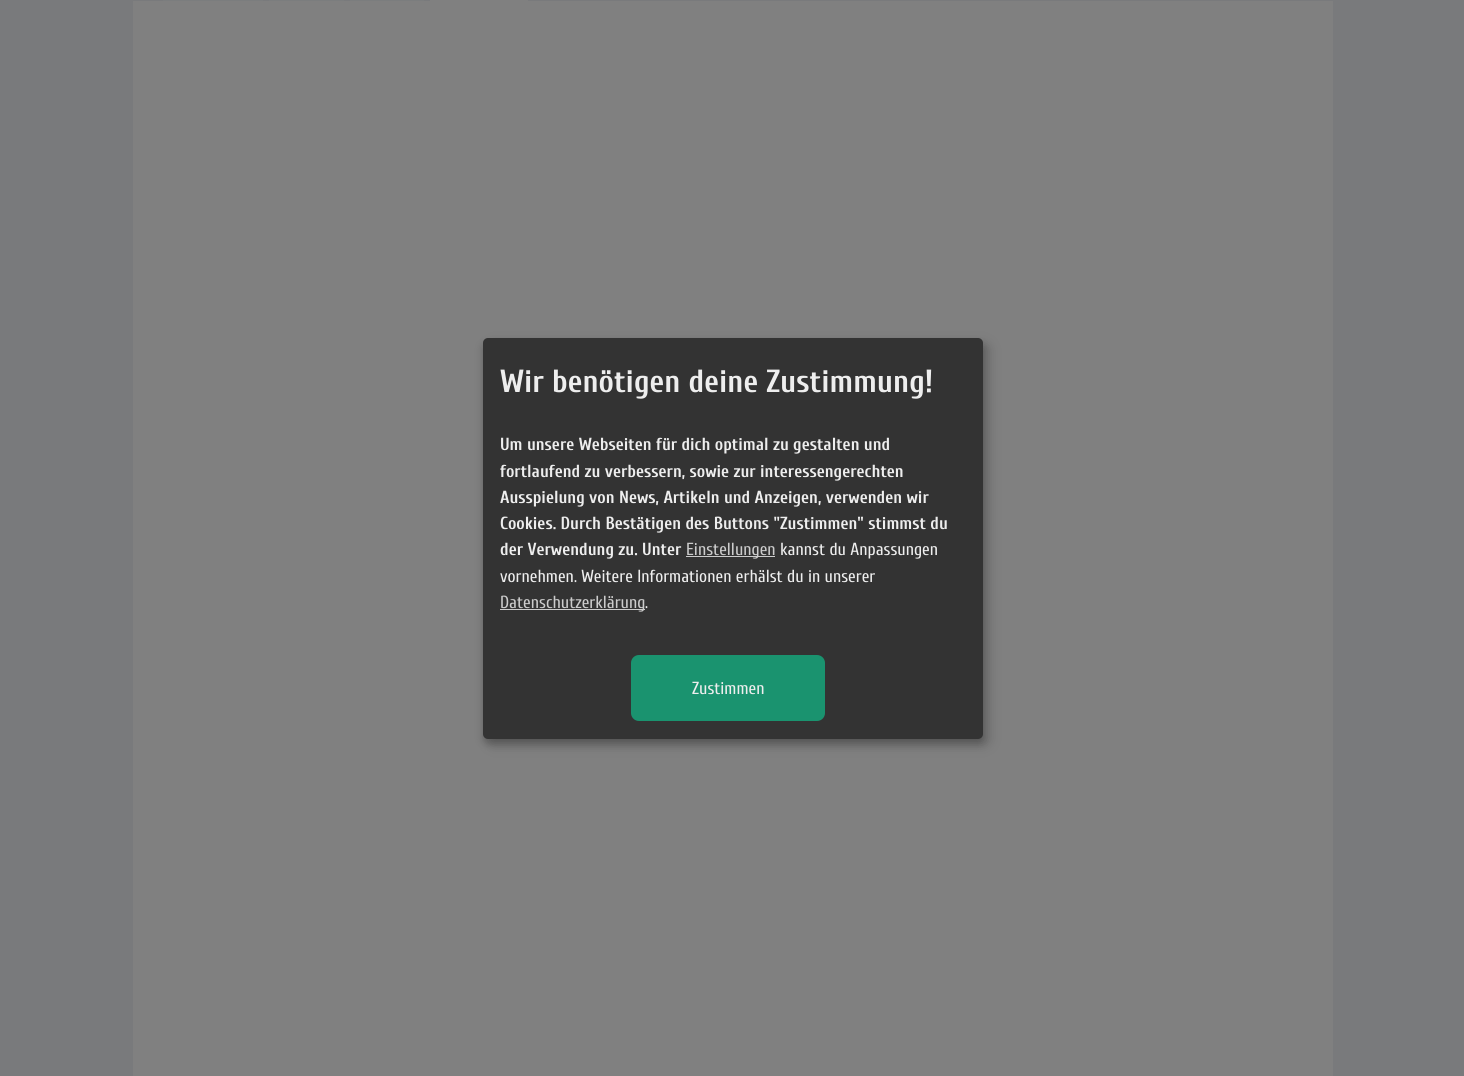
import math
import cairo

surface = cairo.ImageSurface(cairo.FORMAT_RGB24, 1464, 1076)
ctx = cairo.Context(surface)
options = cairo.FontOptions()
options.set_hint_metrics(cairo.HINT_METRICS_OFF)
options.set_hint_style(cairo.HINT_STYLE_NONE)
ctx.set_font_options(options)
ctx.set_miter_limit(4)


def set_color(code):
    ctx.set_source_rgb(*(v / 255 for v in bytes.fromhex(code[-6:])))


def draw_text(x, y, s, family, size, color, bold=False, italic=False):
    ctx.select_font_face(family, cairo.FONT_SLANT_ITALIC if italic else cairo.FONT_SLANT_NORMAL, cairo.FONT_WEIGHT_BOLD if bold else cairo.FONT_WEIGHT_NORMAL)
    ctx.set_font_size(size)
    set_color(color)
    ctx.move_to(x, y)
    ctx.show_text(s)


def fill_rect(x, y, w, h, color):
    set_color(color)
    ctx.rectangle(x, y, w, h)
    ctx.fill()


def rounded_rect(x, y, w, h, r):
    ctx.new_sub_path()
    for i, (u, v) in enumerate([(x + w - r, y + h - r), (x + r, y + h - r), (x + r, y + r), (x + w - r, y + r)]):
        ctx.arc(u, v, r, i * math.pi / 2, (i + 1) * math.pi / 2)
    ctx.close_path()


def draw_shadow(x, y, w, h, r, blur, alpha):
    ctx.push_group_with_content(cairo.CONTENT_ALPHA)
    ctx.set_operator(cairo.OPERATOR_SOURCE)
    for i in range(15, -16, -2):
        e = blur * i / 6
        if min(w, h) + 2 * e > 0:
            ctx.set_source_rgba(0, 0, 0, alpha * math.erfc((i - 1) / 8.5) / 2)
            rounded_rect(x - e, y - e, w + 2 * e, h + 2 * e, max(0, min(r + e + blur * .6, min(w, h) / 2 + e)))
            ctx.fill()
    ctx.mask(ctx.pop_group())


set_color("#797a7c")
ctx.paint()
fill_rect(163, 0, 100, 1, "#7b7d7e")
fill_rect(269, 0, 75, 1, "#7b7d7e")
fill_rect(350, 0, 74, 1, "#7b7d7e")
fill_rect(430, 0, 98, 1, "#808080")
fill_rect(133, 1, 1200, 1075, "#808080")
set_color("#000000")
draw_shadow(489, 344, 500, 401, 5, 6, 0.19)
draw_shadow(483, 343, 500, 401, 5, 4, 0.2)
set_color("#333333")
rounded_rect(483, 338, 500, 401, 5)
ctx.fill()
draw_text(500, 392, "Wir benötigen deine Zustimmung!", "Cuprum", 32, "#eeeeee", bold=True)
draw_text(500, 450, "Um unsere Webseiten für dich optimal zu gestalten und", "Cuprum", 17.5, "#eeeeee", bold=True)
draw_text(500, 477, "fortlaufend zu verbessern, sowie zur interessengerechten", "Cuprum", 17.5, "#eeeeee", bold=True)
draw_text(500, 503, "Ausspielung von News, Artikeln und Anzeigen, verwenden wir", "Cuprum", 17.5, "#eeeeee", bold=True)
draw_text(500, 529, "Cookies. Durch Bestätigen des Buttons \"Zustimmen\" stimmst du", "Cuprum", 17.5, "#eeeeee", bold=True)
draw_text(500, 555, "der Verwendung zu. Unter", "Cuprum", 17.5, "#eeeeee", bold=True)
fill_rect(686, 556, 89, 1, "#cccccc")
draw_text(686, 555, "Einstellungen", "Cuprum", 17.5, "#cccccc")
draw_text(780, 555, "kannst du Anpassungen", "Cuprum", 17.5, "#eeeeee")
draw_text(500, 582, "vornehmen. Weitere Informationen erhälst du in unserer", "Cuprum", 17.5, "#eeeeee")
fill_rect(500, 609, 145, 1, "#cccccc")
draw_text(500, 608, "Datenschutzerklärung", "Cuprum", 17.5, "#cccccc")
draw_text(645, 608, ".", "Cuprum", 17.5, "#eeeeee")
set_color("#1a936f")
rounded_rect(631, 655, 194, 66, 8)
ctx.fill()
draw_text(692, 694, "Zustimmen", "Cuprum", 17.5, "#eeeeee")
surface.write_to_png("output.png")
